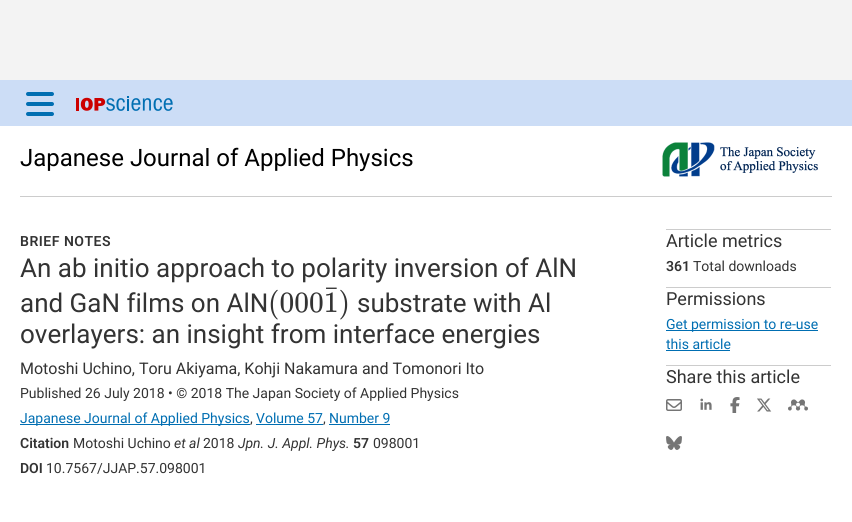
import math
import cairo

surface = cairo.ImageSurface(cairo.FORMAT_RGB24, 852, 522)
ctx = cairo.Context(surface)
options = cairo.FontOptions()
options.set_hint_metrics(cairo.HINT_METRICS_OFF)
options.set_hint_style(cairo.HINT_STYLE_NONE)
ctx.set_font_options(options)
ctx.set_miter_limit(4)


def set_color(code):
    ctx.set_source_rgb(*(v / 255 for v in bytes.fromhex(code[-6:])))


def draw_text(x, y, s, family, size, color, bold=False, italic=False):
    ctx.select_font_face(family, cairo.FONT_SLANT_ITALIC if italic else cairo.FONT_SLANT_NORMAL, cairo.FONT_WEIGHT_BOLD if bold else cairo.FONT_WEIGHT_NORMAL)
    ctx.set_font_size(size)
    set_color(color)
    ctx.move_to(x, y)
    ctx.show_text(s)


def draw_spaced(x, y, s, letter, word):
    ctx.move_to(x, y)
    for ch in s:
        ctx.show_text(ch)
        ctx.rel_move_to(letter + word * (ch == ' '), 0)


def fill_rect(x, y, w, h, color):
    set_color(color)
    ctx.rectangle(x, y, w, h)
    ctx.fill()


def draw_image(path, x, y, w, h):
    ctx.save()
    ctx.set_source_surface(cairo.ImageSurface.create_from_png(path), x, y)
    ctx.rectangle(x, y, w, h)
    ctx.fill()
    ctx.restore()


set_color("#ffffff")
ctx.paint()
fill_rect(0, 0, 852, 80, "#f3f3f3")
fill_rect(0, 80, 852, 46, "#ccddf6")
draw_image("assets/img1.png", 26, 92, 28, 24)
draw_image("assets/img2.png", 76, 96, 97, 15)
fill_rect(20, 196, 812, 1, "#cccccc")
draw_text(20, 166, "Japanese Journal of Applied Physics", "Roboto", 24, "#000000")
draw_image("assets/img3.png", 662, 142, 156, 35)
ctx.select_font_face("Roboto SemiBold")
ctx.set_font_size(14)
set_color("#333333")
draw_spaced(20, 246, "BRIEF NOTES", 0.5, 0)
draw_text(20, 277, "An ab initio approach to polarity inversion of AlN", "Roboto", 26, "#333333")
draw_text(20, 312, "and GaN films on AlN", "Roboto", 26, "#333333")
draw_text(324, 305, "¯", "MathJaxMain", 29.5, "#333333")
draw_text(268, 312, "(0001)", "MathJaxMain", 29.5, "#333333")
draw_text(357, 312, "substrate with Al", "Roboto", 26, "#333333")
draw_text(20, 343, "overlayers: an insight from interface energies", "Roboto", 26, "#333333")
draw_text(20, 374, "Motoshi Uchino, Toru Akiyama, Kohji Nakamura and Tomonori Ito", "Roboto", 16, "#333333")
draw_text(20, 398, "Published 26 July 2018 • © 2018 The Japan Society of Applied Physics", "Roboto", 14, "#333333")
fill_rect(20, 424, 230, 1, "#006eb2")
draw_text(20, 423, "Japanese Journal of Applied Physics", "Roboto", 14, "#006eb2")
draw_text(250, 423, ",", "Roboto", 14, "#333333")
draw_text(256, 423, "Volume 57", "Roboto", 14, "#006eb2")
fill_rect(256, 424, 67, 1, "#006eb2")
draw_text(323, 423, ",", "Roboto", 14, "#333333")
draw_text(329, 423, "Number 9", "Roboto", 14, "#006eb2")
fill_rect(329, 424, 61, 1, "#006eb2")
draw_text(20, 448, "Citation", "Roboto SemiBold", 14, "#333333")
draw_text(73, 448, "Motoshi Uchino", "Roboto", 14, "#333333")
draw_text(174, 448, "et al", "Roboto", 14, "#333333", italic=True)
draw_text(203, 448, "2018", "Roboto", 14, "#333333")
draw_text(238, 448, "Jpn. J. Appl. Phys.", "Roboto", 14, "#333333", italic=True)
draw_text(353, 448, "57", "Roboto SemiBold", 14, "#333333")
draw_text(373, 448, "098001", "Roboto", 14, "#333333")
draw_text(20, 473, "DOI", "Roboto SemiBold", 14, "#333333")
draw_text(46, 473, "10.7567/JJAP.57.098001", "Roboto", 14, "#333333")
fill_rect(666, 229, 165, 1, "#cccccc")
draw_text(666, 247, "Article metrics", "Roboto", 18, "#333333")
draw_text(666, 271, "361", "Roboto SemiBold", 14, "#333333")
draw_text(693, 271, "Total downloads", "Roboto", 14, "#333333")
fill_rect(666, 287, 165, 1, "#cccccc")
draw_text(666, 305, "Permissions", "Roboto", 18, "#333333")
fill_rect(666, 330, 152, 1, "#006eb2")
draw_text(666, 329, "Get permission to re-use", "Roboto", 14, "#006eb2")
draw_text(666, 349, "this article", "Roboto", 14, "#006eb2")
fill_rect(666, 350, 64, 1, "#006eb2")
fill_rect(666, 365, 165, 1, "#cccccc")
draw_text(666, 383, "Share this article", "Roboto", 18, "#333333")
draw_image("assets/img4.png", 666, 399, 16, 12)
draw_image("assets/img5.png", 700, 398, 12, 12)
draw_image("assets/img6.png", 730, 397, 10, 16)
draw_image("assets/img7.png", 757, 398, 15, 14)
draw_image("assets/img8.png", 788, 399, 20, 12)
draw_image("assets/img9.png", 666, 436, 16, 14)
surface.write_to_png("output.png")
